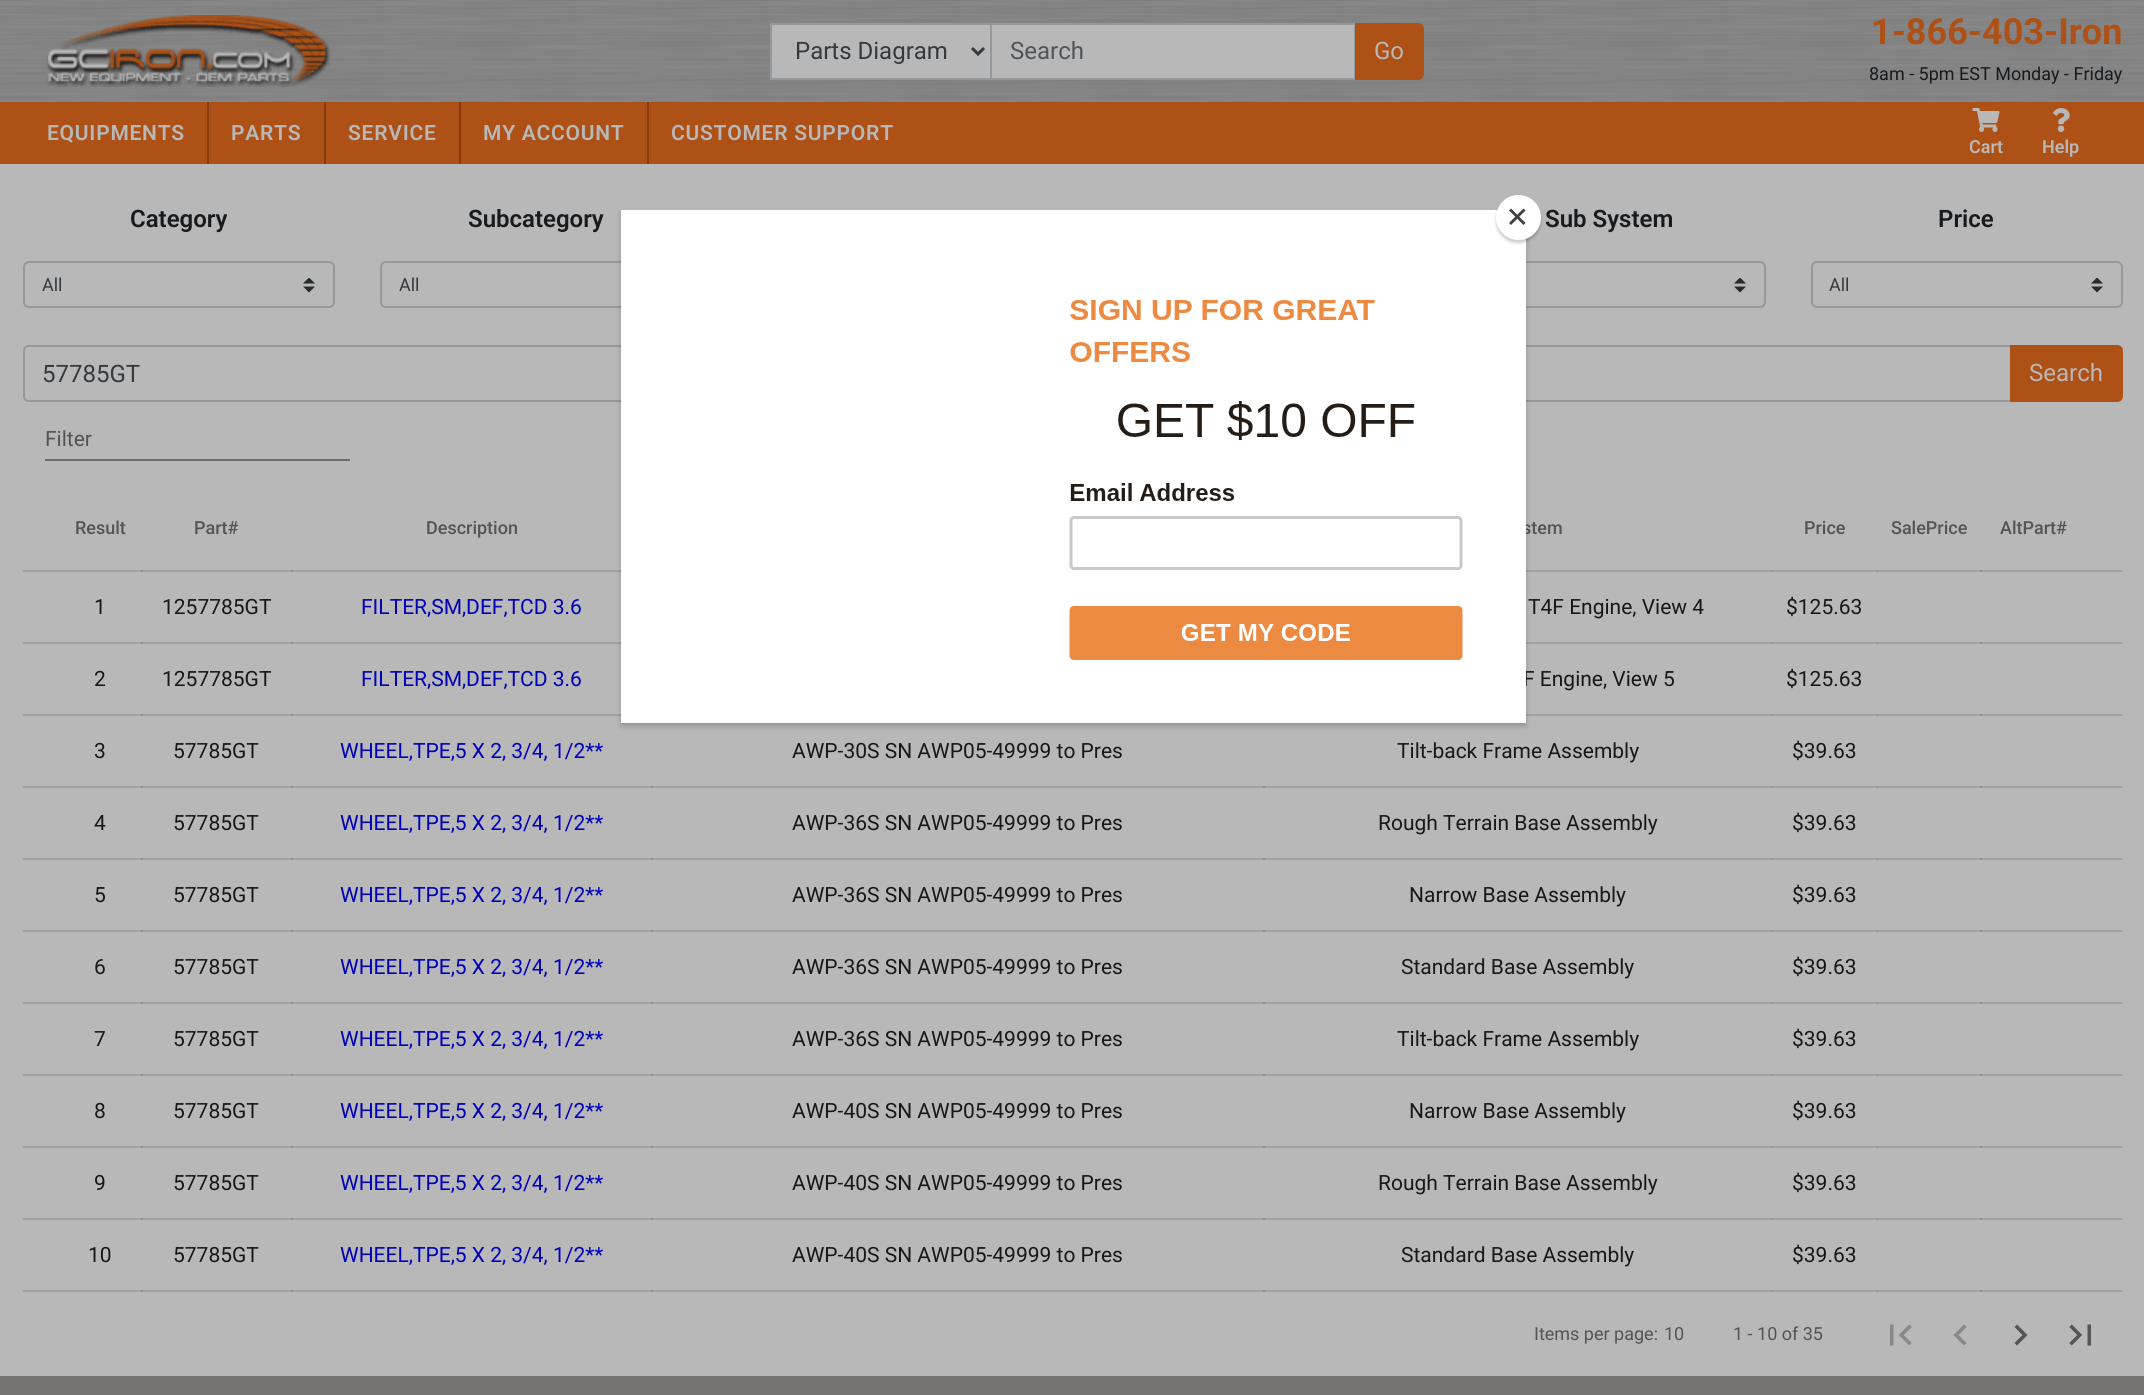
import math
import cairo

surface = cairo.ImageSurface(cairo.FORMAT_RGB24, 2144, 1395)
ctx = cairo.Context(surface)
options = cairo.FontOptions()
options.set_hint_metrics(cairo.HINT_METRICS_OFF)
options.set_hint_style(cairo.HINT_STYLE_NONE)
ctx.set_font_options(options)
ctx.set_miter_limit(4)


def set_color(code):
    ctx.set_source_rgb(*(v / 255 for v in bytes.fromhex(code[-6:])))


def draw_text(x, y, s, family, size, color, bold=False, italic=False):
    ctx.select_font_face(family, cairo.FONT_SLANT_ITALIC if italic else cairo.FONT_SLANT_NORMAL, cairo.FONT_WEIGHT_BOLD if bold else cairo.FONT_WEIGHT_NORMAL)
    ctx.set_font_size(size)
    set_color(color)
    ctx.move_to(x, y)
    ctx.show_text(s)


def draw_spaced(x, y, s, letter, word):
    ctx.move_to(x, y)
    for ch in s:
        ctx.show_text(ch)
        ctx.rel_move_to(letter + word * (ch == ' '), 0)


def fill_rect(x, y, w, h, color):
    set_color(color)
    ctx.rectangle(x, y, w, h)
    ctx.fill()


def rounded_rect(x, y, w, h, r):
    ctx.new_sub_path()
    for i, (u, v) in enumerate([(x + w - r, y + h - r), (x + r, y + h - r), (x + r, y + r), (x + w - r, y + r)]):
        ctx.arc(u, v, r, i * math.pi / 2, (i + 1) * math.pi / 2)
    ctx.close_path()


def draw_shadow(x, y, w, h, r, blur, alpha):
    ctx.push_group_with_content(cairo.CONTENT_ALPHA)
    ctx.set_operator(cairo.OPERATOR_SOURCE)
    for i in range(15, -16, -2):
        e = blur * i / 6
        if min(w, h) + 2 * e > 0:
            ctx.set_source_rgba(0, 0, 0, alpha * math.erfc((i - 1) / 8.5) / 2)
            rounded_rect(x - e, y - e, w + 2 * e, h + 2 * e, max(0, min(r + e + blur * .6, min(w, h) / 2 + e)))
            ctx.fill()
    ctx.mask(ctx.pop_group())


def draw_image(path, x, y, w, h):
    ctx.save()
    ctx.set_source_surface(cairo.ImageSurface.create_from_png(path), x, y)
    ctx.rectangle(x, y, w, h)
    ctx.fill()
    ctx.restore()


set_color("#b8b8b8")
ctx.paint()
fill_rect(23, 570, 598, 2, "#a1a1a1")
fill_rect(141, 570, 2, 2, "#8e8e8e")
fill_rect(291, 570, 2, 2, "#8e8e8e")
fill_rect(1526, 570, 597, 2, "#a1a1a1")
fill_rect(1772, 570, 1, 2, "#8e8e8e")
fill_rect(1877, 570, 1, 2, "#8e8e8e")
fill_rect(23, 642, 598, 2, "#a1a1a1")
fill_rect(141, 642, 2, 2, "#8e8e8e")
fill_rect(291, 642, 2, 2, "#8e8e8e")
fill_rect(1526, 642, 597, 2, "#a1a1a1")
fill_rect(1772, 642, 1, 2, "#8e8e8e")
fill_rect(1877, 642, 1, 2, "#8e8e8e")
fill_rect(23, 714, 598, 2, "#a1a1a1")
fill_rect(141, 714, 2, 2, "#8e8e8e")
fill_rect(291, 714, 2, 2, "#8e8e8e")
fill_rect(1526, 714, 597, 2, "#a1a1a1")
fill_rect(1772, 714, 1, 2, "#8e8e8e")
fill_rect(1877, 714, 1, 2, "#8e8e8e")
fill_rect(23, 786, 2100, 2, "#a1a1a1")
fill_rect(141, 786, 2, 2, "#8e8e8e")
fill_rect(291, 786, 2, 2, "#8e8e8e")
fill_rect(651, 786, 2, 2, "#8e8e8e")
fill_rect(1263, 786, 2, 2, "#8e8e8e")
fill_rect(1772, 786, 1, 2, "#8e8e8e")
fill_rect(1877, 786, 1, 2, "#8e8e8e")
fill_rect(23, 858, 2100, 2, "#a1a1a1")
fill_rect(141, 858, 2, 2, "#8e8e8e")
fill_rect(291, 858, 2, 2, "#8e8e8e")
fill_rect(651, 858, 2, 2, "#8e8e8e")
fill_rect(1263, 858, 2, 2, "#8e8e8e")
fill_rect(1772, 858, 1, 2, "#8e8e8e")
fill_rect(1877, 858, 1, 2, "#8e8e8e")
fill_rect(23, 930, 2100, 2, "#a1a1a1")
fill_rect(141, 930, 2, 2, "#8e8e8e")
fill_rect(291, 930, 2, 2, "#8e8e8e")
fill_rect(651, 930, 2, 2, "#8e8e8e")
fill_rect(1263, 930, 2, 2, "#8e8e8e")
fill_rect(1772, 930, 1, 2, "#8e8e8e")
fill_rect(1877, 930, 1, 2, "#8e8e8e")
fill_rect(23, 1002, 2100, 2, "#a1a1a1")
fill_rect(141, 1002, 2, 2, "#8e8e8e")
fill_rect(291, 1002, 2, 2, "#8e8e8e")
fill_rect(651, 1002, 2, 2, "#8e8e8e")
fill_rect(1263, 1002, 2, 2, "#8e8e8e")
fill_rect(1772, 1002, 1, 2, "#8e8e8e")
fill_rect(1877, 1002, 1, 2, "#8e8e8e")
fill_rect(23, 1074, 2100, 2, "#a1a1a1")
fill_rect(141, 1074, 2, 2, "#8e8e8e")
fill_rect(291, 1074, 2, 2, "#8e8e8e")
fill_rect(651, 1074, 2, 2, "#8e8e8e")
fill_rect(1263, 1074, 2, 2, "#8e8e8e")
fill_rect(1772, 1074, 1, 2, "#8e8e8e")
fill_rect(1877, 1074, 1, 2, "#8e8e8e")
fill_rect(23, 1146, 2100, 2, "#a1a1a1")
fill_rect(141, 1146, 2, 2, "#8e8e8e")
fill_rect(291, 1146, 2, 2, "#8e8e8e")
fill_rect(651, 1146, 2, 2, "#8e8e8e")
fill_rect(1263, 1146, 2, 2, "#8e8e8e")
fill_rect(1772, 1146, 1, 2, "#8e8e8e")
fill_rect(1877, 1146, 1, 2, "#8e8e8e")
fill_rect(23, 1218, 2100, 2, "#a1a1a1")
fill_rect(141, 1218, 2, 2, "#8e8e8e")
fill_rect(291, 1218, 2, 2, "#8e8e8e")
fill_rect(651, 1218, 2, 2, "#8e8e8e")
fill_rect(1263, 1218, 2, 2, "#8e8e8e")
fill_rect(1772, 1218, 1, 2, "#8e8e8e")
fill_rect(1877, 1218, 1, 2, "#8e8e8e")
fill_rect(23, 1290, 2100, 2, "#a1a1a1")
fill_rect(141, 1290, 2, 2, "#8e8e8e")
fill_rect(291, 1290, 2, 2, "#8e8e8e")
fill_rect(651, 1290, 2, 2, "#8e8e8e")
fill_rect(1263, 1290, 2, 2, "#8e8e8e")
fill_rect(1772, 1290, 1, 2, "#8e8e8e")
fill_rect(1877, 1290, 1, 2, "#8e8e8e")
draw_image("assets/img1.png", 0, 0, 2144, 102)
draw_image("assets/img2.png", 46, 15, 284, 72)
set_color("#b8b8b8")
ctx.rectangle(771, 24, 220, 55)
ctx.fill_preserve()
set_color("#94999d")
ctx.stroke()
ctx.new_path()
ctx.move_to(972, 48)
ctx.line_to(978, 54)
ctx.line_to(984, 48)
set_color("#353a3f")
ctx.set_line_width(3)
ctx.stroke()
draw_text(795, 59, "Parts Diagram", "Roboto", 24, "#353a3f")
set_color("#b8b8b8")
ctx.rectangle(991, 24, 364, 55)
ctx.fill_preserve()
set_color("#94999d")
ctx.set_line_width(2)
ctx.stroke()
draw_text(1010, 59, "Search", "Roboto", 24, "#4e545a")
set_color("#ae5116")
ctx.new_path()
ctx.move_to(1356, 24)
ctx.line_to(1418, 24)
ctx.curve_to(1421, 24, 1423, 26, 1423, 29)
ctx.line_to(1423, 74)
ctx.curve_to(1423, 77, 1421, 79, 1418, 79)
ctx.line_to(1356, 79)
ctx.close_path()
ctx.fill_preserve()
ctx.stroke()
draw_text(1374, 59, "Go", "Roboto", 24, "#b8b8b8")
draw_text(1871, 44, "1-866-403-Iron", "Roboto", 36, "#ae5116", bold=True)
draw_text(1869, 80, "8am - 5pm EST Monday - Friday", "Roboto", 18, "#181b1e")
fill_rect(0, 102, 2144, 62, "#ae5116")
fill_rect(207, 102, 2, 62, "#843a0c")
ctx.select_font_face("Roboto SemiBold")
ctx.set_font_size(21)
set_color("#b8b8b8")
draw_spaced(47, 140, "EQUIPMENTS", 0.75, 0)
fill_rect(324, 102, 2, 62, "#843a0c")
set_color("#b8b8b8")
draw_spaced(231, 140, "PARTS", 0.75, 0)
fill_rect(459, 102, 2, 62, "#843a0c")
set_color("#b8b8b8")
draw_spaced(348, 140, "SERVICE", 0.75, 0)
fill_rect(647, 102, 2, 62, "#843a0c")
set_color("#b8b8b8")
draw_spaced(483, 140, "MY ACCOUNT", 0.75, 0)
draw_spaced(671, 140, "CUSTOMER SUPPORT", 0.75, 0)
draw_image("assets/img3.png", 1972, 108, 28, 24)
draw_text(1969, 153, "Cart", "Roboto SemiBold", 18, "#b8b8b8")
draw_image("assets/img4.png", 2053, 108, 17, 24)
draw_text(2042, 153, "Help", "Roboto SemiBold", 18, "#b8b8b8")
draw_text(130, 227, "Category", "Roboto SemiBold", 24, "#181b1e")
draw_image("assets/img5.png", 303, 278, 12, 15)
rounded_rect(24, 262, 310, 45, 5)
set_color("#94999d")
ctx.stroke()
draw_text(42, 291, "All", "Roboto", 18, "#353a3f")
draw_text(468, 227, "Subcategory", "Roboto SemiBold", 24, "#181b1e")
rounded_rect(381, 262, 311, 45, 5)
set_color("#94999d")
ctx.stroke()
draw_text(399, 291, "All", "Roboto", 18, "#353a3f")
draw_text(1545, 227, "Sub System", "Roboto SemiBold", 24, "#181b1e")
draw_image("assets/img5.png", 1734, 278, 12, 15)
rounded_rect(1453, 262, 312, 45, 5)
set_color("#94999d")
ctx.stroke()
draw_text(1938, 227, "Price", "Roboto SemiBold", 24, "#181b1e")
draw_image("assets/img5.png", 2091, 278, 12, 15)
rounded_rect(1812, 262, 310, 45, 5)
set_color("#94999d")
ctx.stroke()
draw_text(1829, 291, "All", "Roboto", 18, "#353a3f")
ctx.new_path()
ctx.move_to(29, 346)
ctx.line_to(2011, 346)
ctx.line_to(2011, 401)
ctx.line_to(29, 401)
ctx.curve_to(26, 401, 24, 399, 24, 396)
ctx.line_to(24, 351)
ctx.curve_to(24, 348, 26, 346, 29, 346)
ctx.close_path()
set_color("#94999d")
ctx.stroke()
draw_text(42, 382, "57785GT", "Roboto", 24, "#353a3f")
set_color("#ae5116")
ctx.new_path()
ctx.move_to(2011, 346)
ctx.line_to(2117, 346)
ctx.curve_to(2120, 346, 2122, 348, 2122, 351)
ctx.line_to(2122, 396)
ctx.curve_to(2122, 399, 2120, 401, 2117, 401)
ctx.line_to(2011, 401)
ctx.close_path()
ctx.fill_preserve()
ctx.stroke()
draw_text(2029, 381, "Search", "Roboto", 24, "#b8b8b8")
draw_text(45, 446, "Filter", "Roboto", 21, "#545454")
fill_rect(45, 459, 305, 2, "#6b6b6b")
draw_text(75, 534, "Result", "Roboto Medium", 18, "#545454")
draw_text(194, 534, "Part#", "Roboto Medium", 18, "#545454")
draw_text(426, 534, "Description", "Roboto Medium", 18, "#545454")
draw_text(1522, 534, "stem", "Roboto Medium", 18, "#545454")
draw_text(1804, 534, "Price", "Roboto Medium", 18, "#545454")
draw_text(1891, 534, "SalePrice", "Roboto Medium", 18, "#545454")
fill_rect(1980, 570, 2, 2, "#8e8e8e")
draw_text(2000, 534, "AltPart#", "Roboto Medium", 18, "#545454")
draw_text(94, 614, "1", "Roboto", 21, "#181818")
draw_text(162, 614, "1257785GT", "Roboto", 21, "#181818")
draw_text(361, 614, "FILTER,SM,DEF,TCD 3.6", "Roboto", 21, "#0000b8")
draw_text(1528, 614, "T4F Engine, View 4", "Roboto", 21, "#181818")
draw_text(1786, 614, "$125.63", "Roboto", 21, "#181818")
fill_rect(1980, 642, 2, 2, "#8e8e8e")
draw_text(94, 686, "2", "Roboto", 21, "#181818")
draw_text(162, 686, "1257785GT", "Roboto", 21, "#181818")
draw_text(361, 686, "FILTER,SM,DEF,TCD 3.6", "Roboto", 21, "#0000b8")
draw_text(1523, 686, "F Engine, View 5", "Roboto", 21, "#181818")
draw_text(1786, 686, "$125.63", "Roboto", 21, "#181818")
fill_rect(1980, 714, 2, 2, "#8e8e8e")
draw_text(94, 758, "3", "Roboto", 21, "#181818")
draw_text(173, 758, "57785GT", "Roboto", 21, "#181818")
draw_text(340, 758, "WHEEL,TPE,5 X 2, 3/4, 1/2**", "Roboto", 21, "#0000b8")
draw_text(792, 758, "AWP-30S SN AWP05-49999 to Pres", "Roboto", 21, "#181818")
draw_text(1397, 758, "Tilt-back Frame Assembly", "Roboto", 21, "#181818")
draw_text(1792, 758, "$39.63", "Roboto", 21, "#181818")
fill_rect(1980, 786, 2, 2, "#8e8e8e")
draw_text(94, 830, "4", "Roboto", 21, "#181818")
draw_text(173, 830, "57785GT", "Roboto", 21, "#181818")
draw_text(340, 830, "WHEEL,TPE,5 X 2, 3/4, 1/2**", "Roboto", 21, "#0000b8")
draw_text(792, 830, "AWP-36S SN AWP05-49999 to Pres", "Roboto", 21, "#181818")
draw_text(1378, 830, "Rough Terrain Base Assembly", "Roboto", 21, "#181818")
draw_text(1792, 830, "$39.63", "Roboto", 21, "#181818")
fill_rect(1980, 858, 2, 2, "#8e8e8e")
draw_text(94, 902, "5", "Roboto", 21, "#181818")
draw_text(173, 902, "57785GT", "Roboto", 21, "#181818")
draw_text(340, 902, "WHEEL,TPE,5 X 2, 3/4, 1/2**", "Roboto", 21, "#0000b8")
draw_text(792, 902, "AWP-36S SN AWP05-49999 to Pres", "Roboto", 21, "#181818")
draw_text(1409, 902, "Narrow Base Assembly", "Roboto", 21, "#181818")
draw_text(1792, 902, "$39.63", "Roboto", 21, "#181818")
fill_rect(1980, 930, 2, 2, "#8e8e8e")
draw_text(94, 974, "6", "Roboto", 21, "#181818")
draw_text(173, 974, "57785GT", "Roboto", 21, "#181818")
draw_text(340, 974, "WHEEL,TPE,5 X 2, 3/4, 1/2**", "Roboto", 21, "#0000b8")
draw_text(792, 974, "AWP-36S SN AWP05-49999 to Pres", "Roboto", 21, "#181818")
draw_text(1401, 974, "Standard Base Assembly", "Roboto", 21, "#181818")
draw_text(1792, 974, "$39.63", "Roboto", 21, "#181818")
fill_rect(1980, 1002, 2, 2, "#8e8e8e")
draw_text(94, 1046, "7", "Roboto", 21, "#181818")
draw_text(173, 1046, "57785GT", "Roboto", 21, "#181818")
draw_text(340, 1046, "WHEEL,TPE,5 X 2, 3/4, 1/2**", "Roboto", 21, "#0000b8")
draw_text(792, 1046, "AWP-36S SN AWP05-49999 to Pres", "Roboto", 21, "#181818")
draw_text(1397, 1046, "Tilt-back Frame Assembly", "Roboto", 21, "#181818")
draw_text(1792, 1046, "$39.63", "Roboto", 21, "#181818")
fill_rect(1980, 1074, 2, 2, "#8e8e8e")
draw_text(94, 1118, "8", "Roboto", 21, "#181818")
draw_text(173, 1118, "57785GT", "Roboto", 21, "#181818")
draw_text(340, 1118, "WHEEL,TPE,5 X 2, 3/4, 1/2**", "Roboto", 21, "#0000b8")
draw_text(792, 1118, "AWP-40S SN AWP05-49999 to Pres", "Roboto", 21, "#181818")
draw_text(1409, 1118, "Narrow Base Assembly", "Roboto", 21, "#181818")
draw_text(1792, 1118, "$39.63", "Roboto", 21, "#181818")
fill_rect(1980, 1146, 2, 2, "#8e8e8e")
draw_text(94, 1190, "9", "Roboto", 21, "#181818")
draw_text(173, 1190, "57785GT", "Roboto", 21, "#181818")
draw_text(340, 1190, "WHEEL,TPE,5 X 2, 3/4, 1/2**", "Roboto", 21, "#0000b8")
draw_text(792, 1190, "AWP-40S SN AWP05-49999 to Pres", "Roboto", 21, "#181818")
draw_text(1378, 1190, "Rough Terrain Base Assembly", "Roboto", 21, "#181818")
draw_text(1792, 1190, "$39.63", "Roboto", 21, "#181818")
fill_rect(1980, 1218, 2, 2, "#8e8e8e")
draw_text(88, 1262, "10", "Roboto", 21, "#181818")
draw_text(173, 1262, "57785GT", "Roboto", 21, "#181818")
draw_text(340, 1262, "WHEEL,TPE,5 X 2, 3/4, 1/2**", "Roboto", 21, "#0000b8")
draw_text(792, 1262, "AWP-40S SN AWP05-49999 to Pres", "Roboto", 21, "#181818")
draw_text(1401, 1262, "Standard Base Assembly", "Roboto", 21, "#181818")
draw_text(1792, 1262, "$39.63", "Roboto", 21, "#181818")
fill_rect(1980, 1290, 2, 2, "#8e8e8e")
draw_text(1534, 1340, "Items per page:", "Roboto", 18, "#545454")
draw_text(1664, 1340, "10", "Roboto", 18, "#545454")
draw_text(1733, 1340, "1 - 10 of 35", "Roboto", 18, "#545454")
draw_image("assets/img6.png", 1890, 1324, 22, 22)
set_color("#888888")
ctx.new_path()
ctx.move_to(1966.5, 1327)
ctx.line_to(1964, 1324.5)
ctx.line_to(1953.5, 1335)
ctx.line_to(1964, 1345.5)
ctx.line_to(1966.5, 1343)
ctx.line_to(1958.5, 1335)
ctx.close_path()
ctx.fill()
set_color("#545454")
ctx.new_path()
ctx.move_to(2017, 1324.5)
ctx.line_to(2014.5, 1327)
ctx.line_to(2022.5, 1335)
ctx.line_to(2014.5, 1343)
ctx.line_to(2017, 1345.5)
ctx.line_to(2027.5, 1335)
ctx.close_path()
ctx.fill()
draw_image("assets/img7.png", 2069, 1324, 22, 22)
fill_rect(0, 1376, 2144, 19, "#787373")
set_color("#000000")
draw_shadow(621, 213, 905, 513, 0, 3, 0.2)
draw_image("assets/img8.png", 621, 210, 905, 513)
draw_shadow(1496, 198, 45, 45, 22.5, 1.5, 0.2)
set_color("#ffffff")
ctx.arc(1518.5, 217.5, 22.5, 0, 2 * math.pi)
ctx.fill()
set_color("#414141")
ctx.new_path()
ctx.move_to(1523.5, 208.5)
ctx.line_to(1525.5, 210.5)
ctx.line_to(1511, 225)
ctx.line_to(1509, 223)
ctx.close_path()
ctx.fill()
ctx.new_path()
ctx.move_to(1509, 210.5)
ctx.line_to(1511, 208.5)
ctx.line_to(1525.5, 223)
ctx.line_to(1523.5, 225)
ctx.close_path()
ctx.fill()
surface.write_to_png("output.png")
